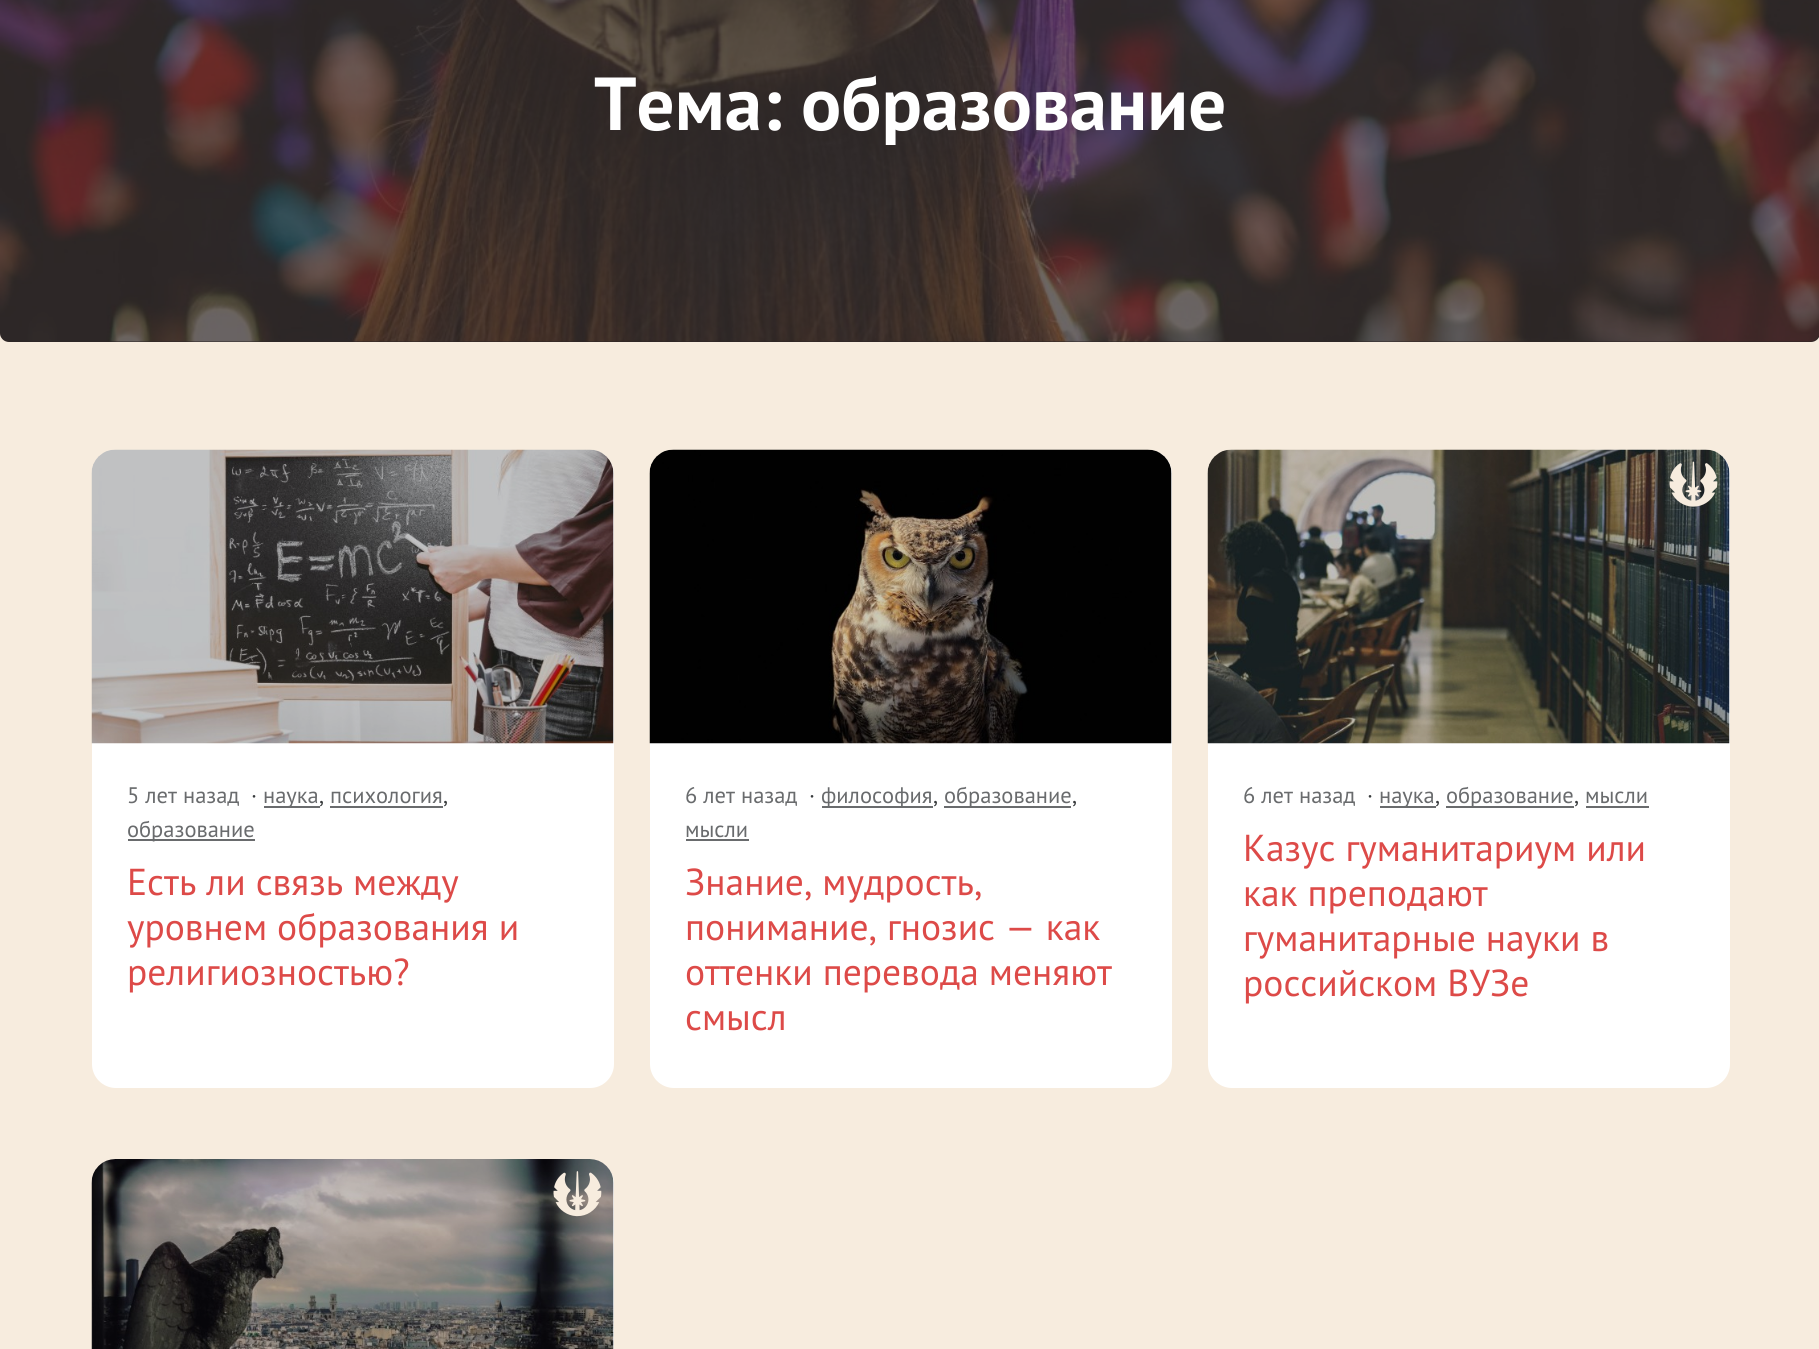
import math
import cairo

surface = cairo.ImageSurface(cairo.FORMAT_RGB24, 1819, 1349)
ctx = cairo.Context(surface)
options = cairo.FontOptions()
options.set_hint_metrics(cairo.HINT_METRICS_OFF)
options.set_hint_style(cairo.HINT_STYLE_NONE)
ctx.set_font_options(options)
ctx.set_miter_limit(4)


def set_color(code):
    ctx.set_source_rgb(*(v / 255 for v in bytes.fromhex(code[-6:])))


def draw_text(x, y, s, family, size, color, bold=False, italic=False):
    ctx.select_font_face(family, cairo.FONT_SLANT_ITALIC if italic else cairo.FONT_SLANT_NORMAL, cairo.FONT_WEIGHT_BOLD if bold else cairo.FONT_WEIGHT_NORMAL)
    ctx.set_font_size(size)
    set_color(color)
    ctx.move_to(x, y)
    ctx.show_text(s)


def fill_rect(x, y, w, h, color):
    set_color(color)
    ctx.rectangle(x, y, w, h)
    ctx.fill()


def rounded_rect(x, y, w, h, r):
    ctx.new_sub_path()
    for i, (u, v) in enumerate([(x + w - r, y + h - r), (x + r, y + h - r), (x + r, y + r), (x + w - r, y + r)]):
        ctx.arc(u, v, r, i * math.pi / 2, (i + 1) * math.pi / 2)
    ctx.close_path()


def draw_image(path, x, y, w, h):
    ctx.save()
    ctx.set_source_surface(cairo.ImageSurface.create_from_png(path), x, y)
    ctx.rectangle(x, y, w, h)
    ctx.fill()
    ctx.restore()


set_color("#f7ecde")
ctx.paint()
set_color("#2d2424")
rounded_rect(0, -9, 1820, 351, 9)
ctx.fill()
draw_image("assets/img1.png", 0, 0, 1819, 342)
draw_text(594, 130, "Тема: образование", "PT Sans", 75, "#ffffff", bold=True)
rounded_rect(92, 450, 522, 638, 24)
ctx.fill()
draw_image("assets/img2.png", 91, 449, 523, 295)
draw_text(127, 803, "5 лет назад", "PT Sans", 22.5, "#696b6d")
draw_text(251, 803, "·", "PT Sans", 22.5, "#373a3c")
fill_rect(264, 806, 56, 2, "#696b6d")
draw_text(263, 803, "наука", "PT Sans", 22.5, "#696b6d")
draw_text(330, 803, "психология", "PT Sans", 22.5, "#696b6d")
fill_rect(330, 806, 113, 2, "#696b6d")
draw_text(319, 803, ",", "PT Sans", 22.5, "#373a3c")
draw_text(443, 803, ",", "PT Sans", 22.5, "#373a3c")
fill_rect(128, 839, 127, 2, "#696b6d")
draw_text(127, 837, "образование", "PT Sans", 22.5, "#696b6d")
draw_text(127, 895, "Есть ли связь между", "PT Sans", 37.5, "#dd4a48")
draw_text(127, 940, "уровнем образования и", "PT Sans", 37.5, "#dd4a48")
draw_text(127, 985, "религиозностью?", "PT Sans", 37.5, "#dd4a48")
set_color("#ffffff")
rounded_rect(650, 450, 522, 638, 24)
ctx.fill()
draw_image("assets/img3.png", 649, 449, 523, 295)
draw_text(685, 803, "6 лет назад", "PT Sans", 22.5, "#696b6d")
draw_text(809, 803, "·", "PT Sans", 22.5, "#373a3c")
fill_rect(822, 806, 111, 2, "#696b6d")
draw_text(821, 803, "философия", "PT Sans", 22.5, "#696b6d")
fill_rect(944, 806, 127, 2, "#696b6d")
draw_text(944, 803, "образование", "PT Sans", 22.5, "#696b6d")
draw_text(933, 803, ",", "PT Sans", 22.5, "#373a3c")
draw_text(1072, 803, ",", "PT Sans", 22.5, "#373a3c")
draw_text(685, 837, "мысли", "PT Sans", 22.5, "#696b6d")
fill_rect(686, 839, 63, 2, "#696b6d")
draw_text(685, 895, "Знание, мудрость,", "PT Sans", 37.5, "#dd4a48")
draw_text(685, 940, "понимание, гнозис — как", "PT Sans", 37.5, "#dd4a48")
draw_text(685, 985, "оттенки перевода меняют", "PT Sans", 37.5, "#dd4a48")
draw_text(685, 1030, "смысл", "PT Sans", 37.5, "#dd4a48")
set_color("#ffffff")
rounded_rect(1208, 450, 522, 638, 24)
ctx.fill()
draw_image("assets/img4.png", 1207, 449, 523, 295)
draw_image("assets/img5.png", 1669, 461, 49, 46)
draw_text(1243, 803, "6 лет назад", "PT Sans", 22.5, "#696b6d")
draw_text(1367, 803, "·", "PT Sans", 22.5, "#373a3c")
fill_rect(1380, 806, 56, 2, "#696b6d")
draw_text(1379, 803, "наука", "PT Sans", 22.5, "#696b6d")
fill_rect(1446, 806, 128, 2, "#696b6d")
draw_text(1446, 803, "образование", "PT Sans", 22.5, "#696b6d")
draw_text(1585, 803, "мысли", "PT Sans", 22.5, "#696b6d")
fill_rect(1586, 806, 63, 2, "#696b6d")
draw_text(1435, 803, ",", "PT Sans", 22.5, "#373a3c")
draw_text(1574, 803, ",", "PT Sans", 22.5, "#373a3c")
draw_text(1243, 861, "Казус гуманитариум или", "PT Sans", 37.5, "#dd4a48")
draw_text(1243, 906, "как преподают", "PT Sans", 37.5, "#dd4a48")
draw_text(1243, 951, "гуманитарные науки в", "PT Sans", 37.5, "#dd4a48")
draw_text(1243, 996, "российском ВУЗе", "PT Sans", 37.5, "#dd4a48")
set_color("#ffffff")
rounded_rect(92, 1160, 522, 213, 24)
ctx.fill()
draw_image("assets/img6.png", 91, 1159, 523, 190)
draw_image("assets/img7.png", 553, 1171, 49, 46)
surface.write_to_png("output.png")
